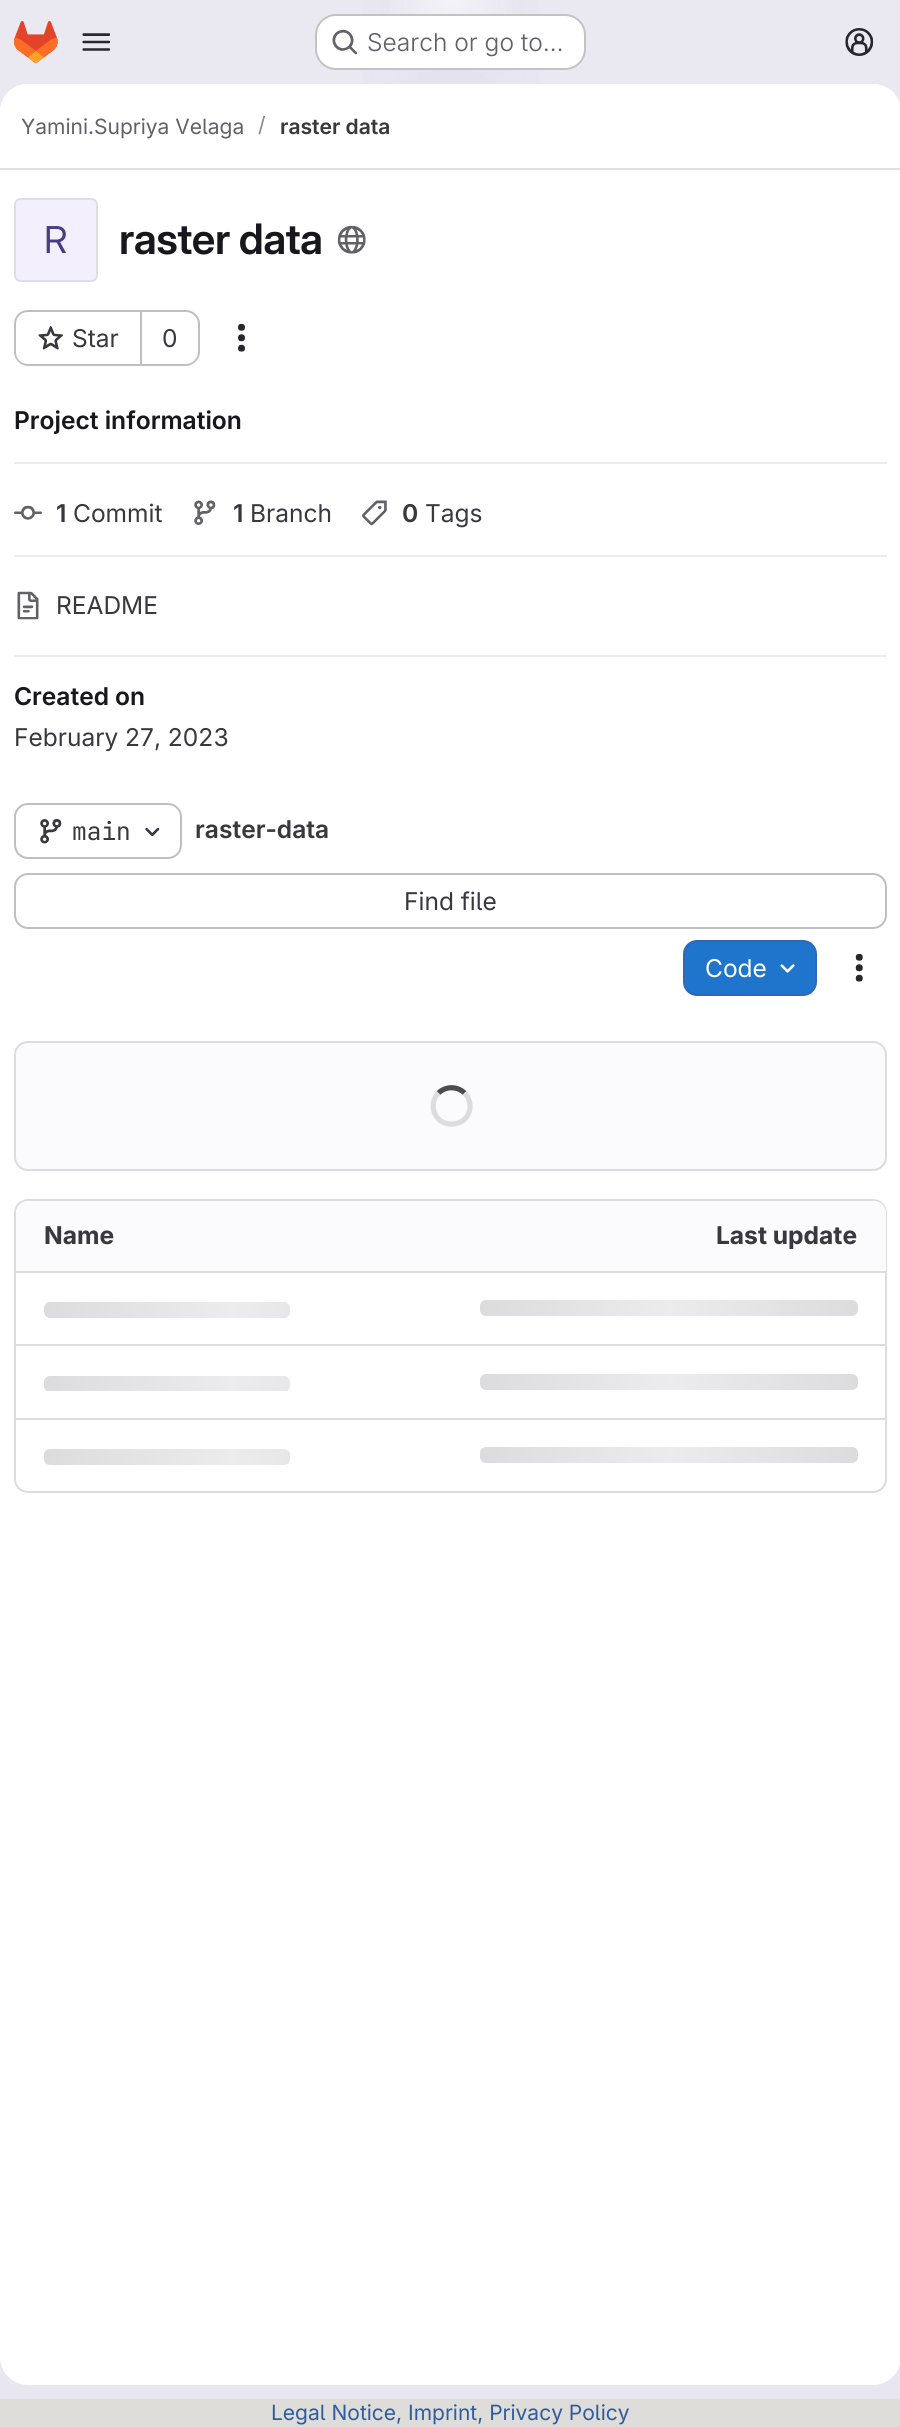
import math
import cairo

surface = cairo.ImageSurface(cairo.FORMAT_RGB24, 900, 2427)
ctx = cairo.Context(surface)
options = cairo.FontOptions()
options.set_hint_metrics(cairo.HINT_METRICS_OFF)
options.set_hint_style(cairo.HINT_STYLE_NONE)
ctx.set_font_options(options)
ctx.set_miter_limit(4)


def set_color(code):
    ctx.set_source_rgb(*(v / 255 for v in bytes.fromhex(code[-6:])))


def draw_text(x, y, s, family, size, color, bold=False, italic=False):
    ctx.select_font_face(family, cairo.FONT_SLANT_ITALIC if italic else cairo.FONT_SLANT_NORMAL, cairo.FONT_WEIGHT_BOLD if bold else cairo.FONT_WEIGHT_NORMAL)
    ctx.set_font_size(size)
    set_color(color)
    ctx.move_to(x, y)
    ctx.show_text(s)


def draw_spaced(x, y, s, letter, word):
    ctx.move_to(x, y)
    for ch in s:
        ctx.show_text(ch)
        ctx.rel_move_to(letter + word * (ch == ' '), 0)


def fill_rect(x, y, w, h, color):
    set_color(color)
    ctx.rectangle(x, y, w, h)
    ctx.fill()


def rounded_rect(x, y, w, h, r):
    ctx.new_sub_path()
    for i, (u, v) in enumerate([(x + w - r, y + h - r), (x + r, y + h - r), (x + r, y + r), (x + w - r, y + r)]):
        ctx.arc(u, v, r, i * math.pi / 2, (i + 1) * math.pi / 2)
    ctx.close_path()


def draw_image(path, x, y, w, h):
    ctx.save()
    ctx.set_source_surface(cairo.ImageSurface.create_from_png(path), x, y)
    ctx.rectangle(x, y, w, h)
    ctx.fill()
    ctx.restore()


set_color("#ffffff")
ctx.paint()
gradient = cairo.LinearGradient(672, 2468, 229, -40)
gradient.add_color_stop_rgba(0, 0.91, 0.902, 0.941, 1)
gradient.add_color_stop_rgba(0.7, 0.918, 0.914, 0.949, 1)
ctx.set_source(gradient)
ctx.rectangle(0, 0, 900, 2399)
ctx.fill()
gradient = cairo.RadialGradient(0, 0, 0, 0, 0, 1)
gradient.set_matrix(cairo.Matrix(1 / 451, 0, 0, 1 / 2427, -1 * 451 / 451, -1 * 0 / 2427))
gradient.add_color_stop_rgba(0, 0.894, 0.886, 0.929, 1)
gradient.add_color_stop_rgba(0.27, 0.894, 0.886, 0.929, 0)
ctx.set_source(gradient)
ctx.rectangle(363, 0, 176, 84)
ctx.fill()
gradient = cairo.RadialGradient(0, 0, 0, 0, 0, 1)
gradient.set_matrix(cairo.Matrix(1 / 451, 0, 0, 1 / 2427, -1 * 451 / 451, -1 * 0 / 2427))
gradient.add_color_stop_rgba(0, 0.894, 0.886, 0.925, 1)
gradient.add_color_stop_rgba(0.19, 0.894, 0.886, 0.925, 0)
ctx.set_source(gradient)
ctx.rectangle(418, 13, 68, 66)
ctx.fill()
gradient = cairo.RadialGradient(451, 0, 0, 451, 0, 2469)
gradient.add_color_stop_rgba(0, 1, 1, 1, 0.6)
gradient.add_color_stop_rgba(0.03, 1, 1, 1, 0)
ctx.set_source(gradient)
ctx.rectangle(390, 0, 122, 63)
ctx.fill()
draw_image("assets/img1.png", 14, 21, 44, 42)
draw_image("assets/img2.png", 82, 33, 29, 18)
set_color("#ffffff")
rounded_rect(315, 14, 271, 56, 21)
ctx.fill()
rounded_rect(316, 15, 269, 54, 20)
ctx.set_source_rgba(0.02, 0.02, 0.024, 0.24)
ctx.stroke()
draw_image("assets/img3.png", 332, 29, 25, 26)
draw_text(367, 51, "Search or go to…", "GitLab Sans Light", 24.5, "#626168")
draw_image("assets/img4.png", 845, 28, 29, 28)
set_color("#ffffff")
rounded_rect(0, 84, 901, 2301, 28)
ctx.fill()
ctx.new_path()
ctx.move_to(28, 84)
ctx.line_to(873, 84)
ctx.curve_to(888.5, 84, 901, 96.5, 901, 112)
ctx.line_to(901, 170)
ctx.line_to(0, 170)
ctx.line_to(0, 112)
ctx.curve_to(0, 96.5, 12.5, 84, 28, 84)
ctx.close_path()
ctx.fill()
fill_rect(0, 168, 900, 2, "#e1dfec")
draw_text(21, 134, "Yamini.Supriya Velaga", "GitLab Sans", 21, "#626168")
draw_text(258, 132, "/", "GitLab Sans", 21, "#89888d")
draw_text(280, 134, "raster data", "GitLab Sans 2 SemiBold", 21, "#3a383f")
set_color("#f3effc")
rounded_rect(14, 198, 84, 84, 7)
ctx.fill()
rounded_rect(15, 199, 82, 82, 6)
ctx.set_source_rgba(0.02, 0.02, 0.024, 0.08)
ctx.stroke()
draw_text(44, 253, "R", "GitLab Sans 2", 37, "#493c83")
ctx.select_font_face("GitLab Sans SemiBold")
ctx.set_font_size(42)
set_color("#18171d")
draw_spaced(119, 254, "raster data", -0.5, 0)
draw_image("assets/img5.png", 337, 225, 29, 29)
set_color("#bfbfc3")
ctx.set_fill_rule(cairo.FILL_RULE_EVEN_ODD)
ctx.new_path()
ctx.move_to(28, 310)
ctx.line_to(140, 310)
ctx.line_to(140, 366)
ctx.line_to(28, 366)
ctx.curve_to(20, 366, 14, 359, 14, 352)
ctx.line_to(14, 324)
ctx.curve_to(14, 316, 20, 310, 28, 310)
ctx.close_path()
ctx.move_to(28, 312)
ctx.line_to(140, 312)
ctx.line_to(140, 364)
ctx.line_to(28, 364)
ctx.curve_to(21, 364, 16, 359, 16, 352)
ctx.line_to(16, 324)
ctx.curve_to(16, 317, 21, 312, 28, 312)
ctx.close_path()
ctx.fill()
draw_image("assets/img6.png", 38, 326, 25, 24)
draw_text(72, 347, "Star", "GitLab Sans", 24.5, "#3a383f")
set_color("#bfbfc3")
ctx.new_path()
ctx.move_to(142, 310)
ctx.line_to(186, 310)
ctx.curve_to(193, 310, 200, 316, 200, 324)
ctx.line_to(200, 352)
ctx.curve_to(200, 359, 193, 366, 186, 366)
ctx.line_to(142, 366)
ctx.close_path()
ctx.move_to(142, 312)
ctx.line_to(186, 312)
ctx.curve_to(192, 312, 198, 317, 198, 324)
ctx.line_to(198, 352)
ctx.curve_to(198, 359, 192, 364, 186, 364)
ctx.line_to(142, 364)
ctx.close_path()
ctx.fill()
fill_rect(140, 310, 2, 56, "#bfbfc3")
draw_text(162, 347, "0", "GitLab Sans", 24.5, "#3a383f")
draw_image("assets/img7.png", 238, 323, 7, 29)
fill_rect(14, 462, 873, 2, "#ececef")
draw_text(14, 429, "Project information", "GitLab Sans 2 SemiBold", 24.5, "#18171d")
fill_rect(14, 555, 873, 2, "#ececef")
draw_image("assets/img8.png", 14, 505, 28, 15)
draw_text(56, 522, "1", "GitLab Sans 2 SemiBold", 24.5, "#3a383f")
draw_text(73, 522, "Commit", "GitLab Sans", 24.5, "#3a383f")
draw_image("assets/img9.png", 194, 500, 22, 25)
draw_text(233, 522, "1", "GitLab Sans 2 SemiBold", 24.5, "#3a383f")
draw_text(250, 522, "Branch", "GitLab Sans", 24.5, "#3a383f")
draw_image("assets/img10.png", 362, 500, 25, 26)
draw_text(402, 522, "0", "GitLab Sans 2 SemiBold", 24.5, "#3a383f")
draw_text(425, 522, "Tags", "GitLab Sans", 24.5, "#3a383f")
fill_rect(14, 655, 873, 2, "#ececef")
draw_image("assets/img11.png", 17, 591, 22, 29)
draw_text(56, 614, "README", "GitLab Sans", 24.5, "#3a383f")
draw_text(14, 705, "Created on", "GitLab Sans 2 SemiBold", 24.5, "#18171d")
draw_text(14, 746, "February 27, 2023", "GitLab Sans", 24.5, "#3a383f")
rounded_rect(15, 804, 166, 54, 13)
set_color("#bfbfc3")
ctx.stroke()
draw_image("assets/img12.png", 40, 819, 22, 25)
draw_text(72, 840, "main", "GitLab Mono", 24.5, "#3a383f")
draw_image("assets/img13.png", 145, 827, 15, 10)
draw_text(195, 838, "raster-data", "GitLab Sans 2 SemiBold", 24.5, "#3a383f")
rounded_rect(15, 874, 871, 54, 13)
set_color("#bfbfc3")
ctx.stroke()
draw_text(404, 910, "Find file", "GitLab Sans", 24.5, "#3a383f")
set_color("#1f75cb")
rounded_rect(684, 941, 132, 54, 13)
ctx.fill_preserve()
set_color("#2f68b4")
ctx.stroke()
draw_text(705, 977, "Code", "GitLab Sans", 24.5, "#ffffff")
draw_image("assets/img14.png", 780, 964, 15, 9)
draw_image("assets/img15.png", 855, 953, 8, 29)
set_color("#fbfafd")
rounded_rect(15, 1042, 871, 128, 13)
ctx.fill_preserve()
set_color("#dcdcde")
ctx.stroke()
ctx.new_path()
ctx.move_to(438.5, 1093)
ctx.curve_to(445.5, 1086, 457.5, 1086, 464.5, 1093)
set_color("#4c4b51")
ctx.set_line_width(5.2)
ctx.stroke()
ctx.new_path()
ctx.move_to(464.5, 1093)
ctx.curve_to(468, 1096.5, 470, 1101, 470, 1106)
ctx.curve_to(470, 1128, 438, 1131, 433.5, 1109.5)
ctx.curve_to(432.5, 1103.5, 434, 1097.5, 438.5, 1093)
set_color("#dcdcde")
ctx.stroke()
rounded_rect(15, 1200, 871, 292, 13)
ctx.set_line_width(2)
ctx.stroke()
set_color("#fbfafd")
ctx.new_path()
ctx.move_to(28, 1201)
ctx.line_to(452, 1201)
ctx.line_to(452, 1272)
ctx.line_to(16, 1272)
ctx.line_to(16, 1213)
ctx.curve_to(16, 1206.5, 21.5, 1201, 28, 1201)
ctx.close_path()
ctx.fill()
draw_text(44, 1244, "Name", "GitLab Sans", 24.5, "#3a383f", bold=True)
set_color("#fbfafd")
ctx.new_path()
ctx.move_to(452, 1201)
ctx.line_to(874, 1201)
ctx.curve_to(880.5, 1201, 886, 1206.5, 886, 1213)
ctx.line_to(886, 1272)
ctx.line_to(452, 1272)
ctx.close_path()
ctx.fill()
draw_text(716, 1244, "Last update", "GitLab Sans", 24.5, "#3a383f", bold=True)
fill_rect(16, 1271, 870, 2, "#dcdcde")
gradient = cairo.LinearGradient(480, 1300, 858, 1300)
gradient.add_color_stop_rgba(0, 0.863, 0.863, 0.871, 1)
gradient.add_color_stop_rgba(0.5, 0.925, 0.925, 0.937, 1)
gradient.add_color_stop_rgba(1, 0.863, 0.863, 0.871, 1)
ctx.set_source(gradient)
rounded_rect(480, 1300, 378, 16, 6)
ctx.fill()
gradient = cairo.LinearGradient(44, 1302, 422, 1302)
gradient.add_color_stop_rgba(0, 0.863, 0.863, 0.871, 1)
gradient.add_color_stop_rgba(0.5, 0.925, 0.925, 0.937, 1)
gradient.add_color_stop_rgba(1, 0.863, 0.863, 0.871, 1)
ctx.set_source(gradient)
rounded_rect(44, 1302, 246, 16, 6)
ctx.fill()
fill_rect(16, 1344, 870, 2, "#dcdcde")
gradient = cairo.LinearGradient(480, 1374, 858, 1374)
gradient.add_color_stop_rgba(0, 0.863, 0.863, 0.871, 1)
gradient.add_color_stop_rgba(0.5, 0.925, 0.925, 0.937, 1)
gradient.add_color_stop_rgba(1, 0.863, 0.863, 0.871, 1)
ctx.set_source(gradient)
rounded_rect(480, 1374, 378, 16, 6)
ctx.fill()
ctx.save()
ctx.set_fill_rule(cairo.FILL_RULE_WINDING)
rounded_rect(44, 1376, 246, 16, 6)
ctx.clip()
gradient = cairo.LinearGradient(44, 1376, 422, 1376)
gradient.add_color_stop_rgba(0, 0.863, 0.863, 0.871, 1)
gradient.add_color_stop_rgba(0.5, 0.925, 0.925, 0.937, 1)
gradient.add_color_stop_rgba(1, 0.863, 0.863, 0.871, 1)
ctx.set_source(gradient)
ctx.new_path()
ctx.move_to(50, 1376)
ctx.line_to(284, 1376)
ctx.curve_to(287.5, 1376, 290, 1378.5, 290, 1382)
ctx.line_to(290, 1391)
ctx.line_to(44, 1391)
ctx.line_to(44, 1382)
ctx.curve_to(44, 1378.5, 46.5, 1376, 50, 1376)
ctx.close_path()
ctx.fill()
ctx.restore()
fill_rect(16, 1418, 870, 2, "#dcdcde")
gradient = cairo.LinearGradient(480, 1447, 858, 1447)
gradient.add_color_stop_rgba(0, 0.863, 0.863, 0.871, 1)
gradient.add_color_stop_rgba(0.5, 0.925, 0.925, 0.937, 1)
gradient.add_color_stop_rgba(1, 0.863, 0.863, 0.871, 1)
ctx.set_source(gradient)
rounded_rect(480, 1447, 378, 16, 6)
ctx.fill()
gradient = cairo.LinearGradient(44, 1449, 422, 1449)
gradient.add_color_stop_rgba(0, 0.863, 0.863, 0.871, 1)
gradient.add_color_stop_rgba(0.5, 0.925, 0.925, 0.937, 1)
gradient.add_color_stop_rgba(1, 0.863, 0.863, 0.871, 1)
ctx.set_source(gradient)
rounded_rect(44, 1449, 246, 16, 6)
ctx.fill()
fill_rect(0, 2399, 900, 28, "#deddda")
draw_text(271, 2420, "Legal Notice, Imprint, Privacy Policy", "GitLab Sans", 21, "#2f5ca0")
surface.write_to_png("output.png")
